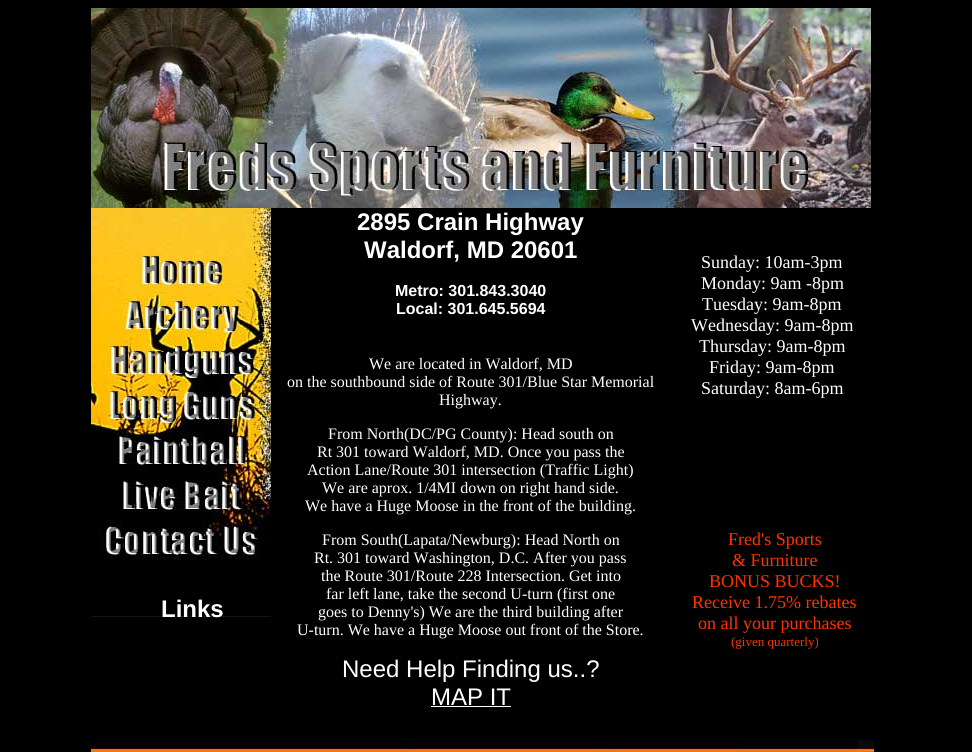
import math
import cairo

surface = cairo.ImageSurface(cairo.FORMAT_RGB24, 972, 752)
ctx = cairo.Context(surface)
options = cairo.FontOptions()
options.set_hint_metrics(cairo.HINT_METRICS_OFF)
options.set_hint_style(cairo.HINT_STYLE_NONE)
ctx.set_font_options(options)
ctx.set_miter_limit(4)


def set_color(code):
    ctx.set_source_rgb(*(v / 255 for v in bytes.fromhex(code[-6:])))


def draw_text(x, y, s, family, size, color, bold=False, italic=False):
    ctx.select_font_face(family, cairo.FONT_SLANT_ITALIC if italic else cairo.FONT_SLANT_NORMAL, cairo.FONT_WEIGHT_BOLD if bold else cairo.FONT_WEIGHT_NORMAL)
    ctx.set_font_size(size)
    set_color(color)
    ctx.move_to(x, y)
    ctx.show_text(s)


def fill_rect(x, y, w, h, color):
    set_color(color)
    ctx.rectangle(x, y, w, h)
    ctx.fill()


def draw_image(path, x, y, w, h):
    ctx.save()
    ctx.set_source_surface(cairo.ImageSurface.create_from_png(path), x, y)
    ctx.rectangle(x, y, w, h)
    ctx.fill()
    ctx.restore()


set_color("#000000")
ctx.paint()
draw_image("assets/img2.png", 91, 208, 180, 409)
draw_text(161, 617, "Links", "Liberation Sans", 24, "#ffffff", bold=True)
draw_image("assets/img1.png", 91, 8, 780, 200)
draw_text(357, 230, "2895 Crain Highway", "Liberation Sans", 24, "#ffffff", bold=True)
draw_text(364, 258, "Waldorf, MD 20601", "Liberation Sans", 24, "#ffffff", bold=True)
draw_text(395, 296, "Metro: 301.843.3040", "Liberation Sans", 16, "#ffffff", bold=True)
draw_text(396, 314, "Local: 301.645.5694", "Liberation Sans", 16, "#ffffff", bold=True)
draw_text(701, 268, "Sunday: 10am-3pm", "Liberation Serif", 18, "#ffffff")
draw_text(701, 289, "Monday: 9am -8pm", "Liberation Serif", 18, "#ffffff")
draw_text(702, 310, "Tuesday: 9am-8pm", "Liberation Serif", 18, "#ffffff")
draw_text(691, 331, "Wednesday: 9am-8pm", "Liberation Serif", 18, "#ffffff")
draw_text(699, 352, "Thursday: 9am-8pm", "Liberation Serif", 18, "#ffffff")
draw_text(709, 373, "Friday: 9am-8pm", "Liberation Serif", 18, "#ffffff")
draw_text(701, 394, "Saturday: 8am-6pm", "Liberation Serif", 18, "#ffffff")
draw_text(369, 369, "We are located in Waldorf, MD", "Liberation Serif", 16, "#ffffff")
draw_text(287, 387, "on the southbound side of Route 301/Blue Star Memorial", "Liberation Serif", 16, "#ffffff")
draw_text(439, 405, "Highway.", "Liberation Serif", 16, "#ffffff")
draw_text(328, 439, "From North(DC/PG County): Head south on", "Liberation Serif", 16, "#ffffff")
draw_text(317, 457, "Rt 301 toward Waldorf, MD. Once you pass the", "Liberation Serif", 16, "#ffffff")
draw_text(307, 475, "Action Lane/Route 301 intersection (Traffic Light)", "Liberation Serif", 16, "#ffffff")
draw_text(322, 493, "We are aprox. 1/4MI down on right hand side.", "Liberation Serif", 16, "#ffffff")
draw_text(305, 511, "We have a Huge Moose in the front of the building.", "Liberation Serif", 16, "#ffffff")
draw_text(322, 545, "From South(Lapata/Newburg): Head North on", "Liberation Serif", 16, "#ffffff")
draw_text(314, 563, "Rt. 301 toward Washington, D.C. After you pass", "Liberation Serif", 16, "#ffffff")
draw_text(321, 581, "the Route 301/Route 228 Intersection. Get into", "Liberation Serif", 16, "#ffffff")
draw_text(326, 599, "far left lane, take the second U-turn (first one", "Liberation Serif", 16, "#ffffff")
draw_text(318, 617, "goes to Denny's) We are the third building after", "Liberation Serif", 16, "#ffffff")
draw_text(297, 635, "U-turn. We have a Huge Moose out front of the Store.", "Liberation Serif", 16, "#ffffff")
draw_text(342, 677, "Need Help Finding us..?", "Liberation Sans", 24, "#ffffff")
draw_text(431, 705, "MAP IT", "Liberation Sans", 24, "#ffffff")
fill_rect(431, 706, 80, 1, "#ffffff")
draw_text(728, 545, "Fred's Sports", "Liberation Serif", 18, "#ff3300")
draw_text(732, 566, "& Furniture", "Liberation Serif", 18, "#ff3300")
draw_text(709, 587, "BONUS BUCKS!", "Liberation Serif", 18, "#ff3300")
draw_text(692, 608, "Receive 1.75% rebates", "Liberation Serif", 18, "#ff3300")
draw_text(698, 629, "on all your purchases", "Liberation Serif", 18, "#ff3300")
draw_text(731, 646, "(given quarterly)", "Liberation Serif", 13, "#ff3300")
draw_image("assets/img3.png", 91, 740, 783, 12)
surface.write_to_png("output.png")
